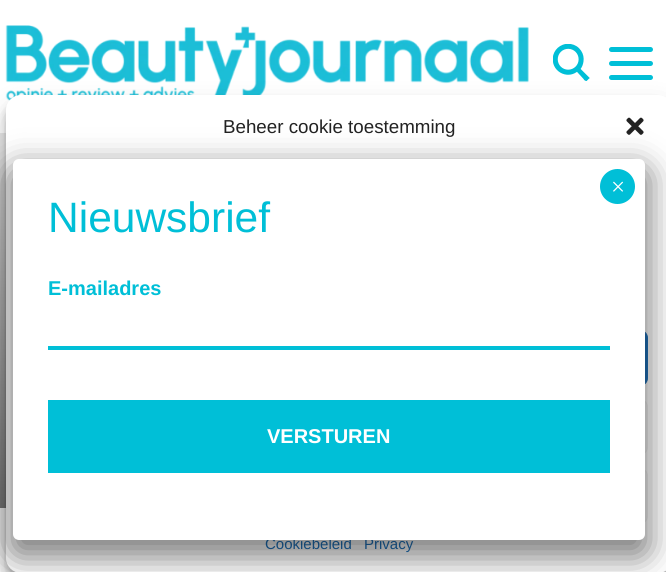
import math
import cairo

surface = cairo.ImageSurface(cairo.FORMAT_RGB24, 666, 572)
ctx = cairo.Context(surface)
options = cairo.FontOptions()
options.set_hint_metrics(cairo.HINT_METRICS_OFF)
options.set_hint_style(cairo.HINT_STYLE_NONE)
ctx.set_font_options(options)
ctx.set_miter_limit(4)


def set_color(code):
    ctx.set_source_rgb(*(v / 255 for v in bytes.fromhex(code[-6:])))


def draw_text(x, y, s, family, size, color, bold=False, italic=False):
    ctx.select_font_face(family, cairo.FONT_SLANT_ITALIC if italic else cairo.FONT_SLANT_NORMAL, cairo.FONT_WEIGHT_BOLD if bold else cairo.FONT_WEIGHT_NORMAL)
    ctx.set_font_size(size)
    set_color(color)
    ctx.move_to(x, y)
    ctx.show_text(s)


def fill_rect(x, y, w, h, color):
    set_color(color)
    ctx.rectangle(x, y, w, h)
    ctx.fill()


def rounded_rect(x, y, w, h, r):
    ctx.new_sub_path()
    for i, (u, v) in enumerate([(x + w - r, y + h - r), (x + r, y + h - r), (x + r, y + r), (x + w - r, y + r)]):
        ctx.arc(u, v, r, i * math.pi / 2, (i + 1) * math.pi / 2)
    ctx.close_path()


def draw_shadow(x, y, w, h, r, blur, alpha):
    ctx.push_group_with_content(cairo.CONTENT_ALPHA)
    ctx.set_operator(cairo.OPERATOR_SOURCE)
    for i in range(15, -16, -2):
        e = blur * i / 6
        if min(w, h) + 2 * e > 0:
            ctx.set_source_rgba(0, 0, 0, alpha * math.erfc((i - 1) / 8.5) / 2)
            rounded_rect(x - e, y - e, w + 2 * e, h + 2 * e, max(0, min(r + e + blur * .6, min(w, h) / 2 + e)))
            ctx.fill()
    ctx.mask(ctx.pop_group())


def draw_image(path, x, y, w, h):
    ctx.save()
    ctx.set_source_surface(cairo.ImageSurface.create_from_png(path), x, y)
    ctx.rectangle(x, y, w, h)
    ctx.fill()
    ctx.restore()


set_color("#ffffff")
ctx.paint()
draw_image("assets/img1.png", 5, 25, 524, 76)
draw_image("assets/img2.png", 553, 44, 37, 37)
set_color("#00bfd7")
rounded_rect(609, 47, 44, 5, 2.5)
ctx.fill()
rounded_rect(609, 61, 44, 5, 2.5)
ctx.fill()
rounded_rect(609, 75, 44, 5, 2.5)
ctx.fill()
gradient = cairo.LinearGradient(333, 132, 333, 508)
gradient.add_color_stop_rgba(0.1, 0.914, 0.914, 0.914, 1)
gradient.add_color_stop_rgba(1, 0.502, 0.502, 0.502, 1)
ctx.set_source(gradient)
ctx.rectangle(0, 133, 6, 375)
ctx.fill()
set_color("#000000")
draw_shadow(6, 103, 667, 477, 15, 4, 0.23)
draw_shadow(6, 108, 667, 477, 15, 12.5, 0.19)
set_color("#ffffff")
rounded_rect(6, 95, 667, 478, 15)
ctx.fill()
draw_text(223, 133, "Beheer cookie toestemming", "Liberation Sans", 18.75, "#222222")
draw_image("assets/img3.png", 626, 117, 18, 18)
set_color("#1e73be")
rounded_rect(31.5, 330.5, 616, 55, 7.5)
ctx.fill_preserve()
ctx.set_line_width(1)
ctx.stroke()
set_color("#f9f9f9")
rounded_rect(31.5, 399.5, 616, 55, 7.5)
ctx.fill_preserve()
set_color("#f2f2f2")
ctx.stroke()
set_color("#f9f9f9")
rounded_rect(31.5, 468.5, 616, 55, 7.5)
ctx.fill_preserve()
set_color("#f2f2f2")
ctx.stroke()
draw_text(265, 549, "Cookiebeleid", "Liberation Sans", 15, "#1e73be")
draw_text(364, 549, "Privacy", "Liberation Sans", 15, "#1e73be")
set_color("#020202")
draw_shadow(8, 166, 642, 392, 11, 15.5, 0.5)
set_color("#ffffff")
rounded_rect(13, 159, 632, 381, 6)
ctx.fill()
set_color("#00bfd7")
ctx.arc(617.5, 186.5, 17.5, 0, 2 * math.pi)
ctx.fill()
draw_text(611, 195, "×", "Liberation Serif", 25, "#ffffff")
draw_text(48, 232, "Nieuwsbrief", "Liberation Sans", 42.5, "#00bfd7")
draw_text(48, 295, "E-mailadres", "Liberation Sans", 20, "#00bfd7", bold=True)
fill_rect(48, 346, 562, 4, "#00bfd7")
fill_rect(48, 400, 562, 73, "#00bfd7")
draw_text(267, 443, "VERSTUREN", "Liberation Sans", 20, "#ffffff", bold=True)
surface.write_to_png("output.png")
